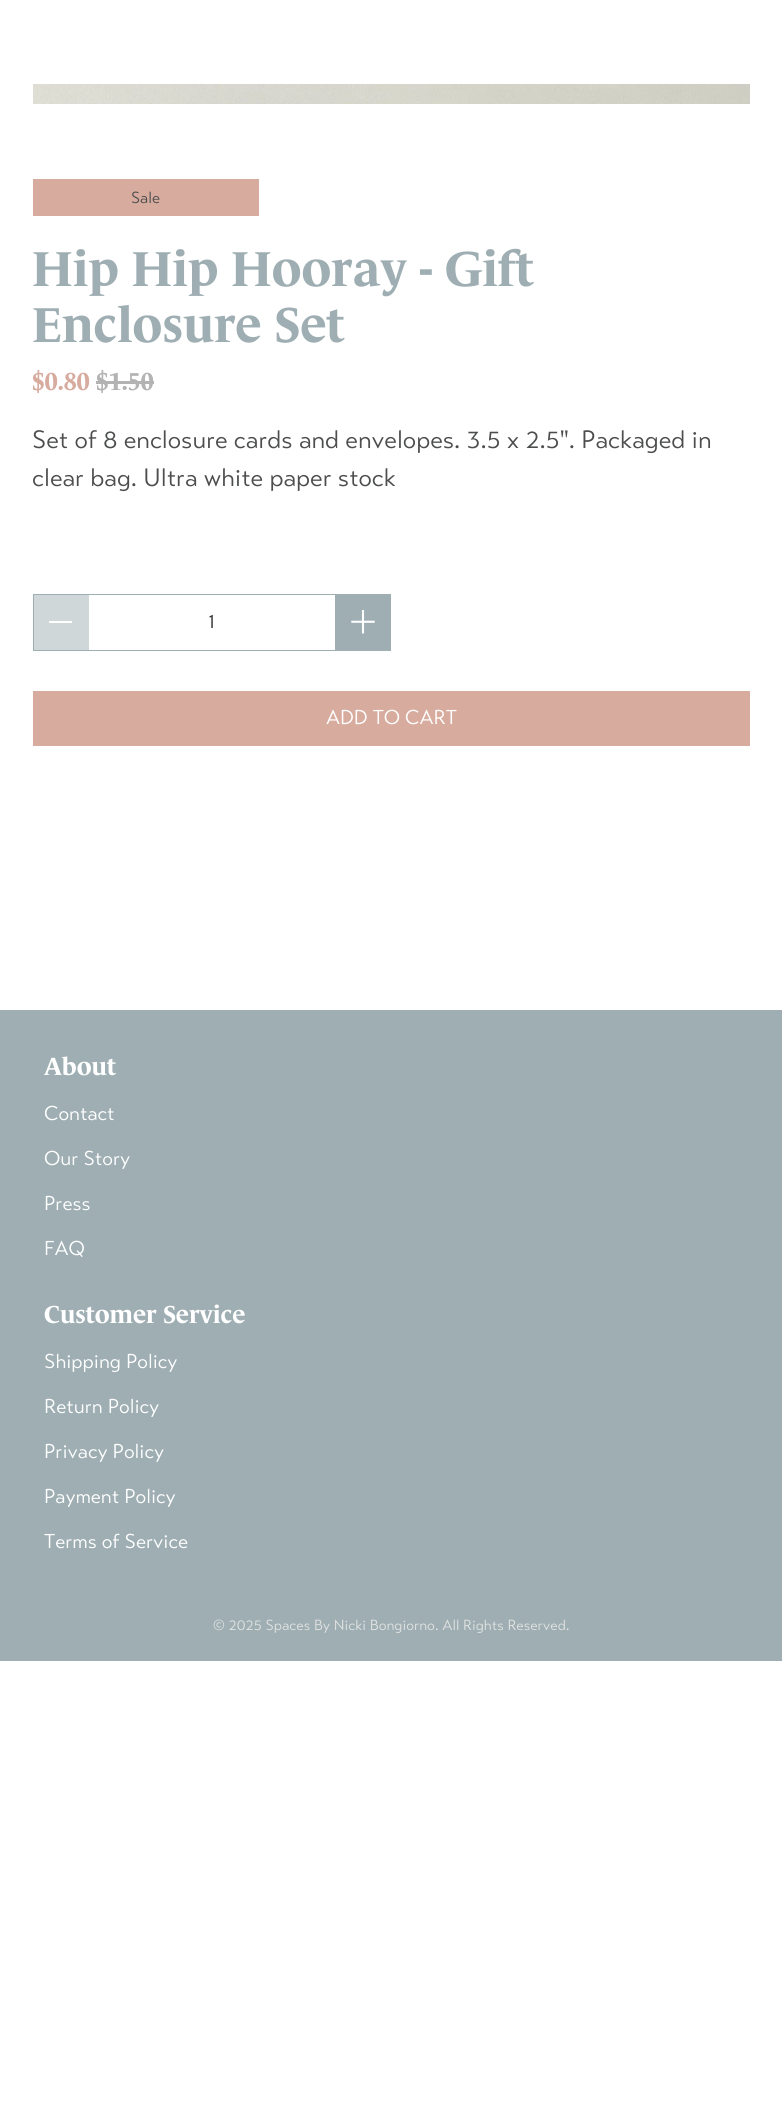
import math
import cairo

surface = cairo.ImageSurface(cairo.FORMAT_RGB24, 782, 2109)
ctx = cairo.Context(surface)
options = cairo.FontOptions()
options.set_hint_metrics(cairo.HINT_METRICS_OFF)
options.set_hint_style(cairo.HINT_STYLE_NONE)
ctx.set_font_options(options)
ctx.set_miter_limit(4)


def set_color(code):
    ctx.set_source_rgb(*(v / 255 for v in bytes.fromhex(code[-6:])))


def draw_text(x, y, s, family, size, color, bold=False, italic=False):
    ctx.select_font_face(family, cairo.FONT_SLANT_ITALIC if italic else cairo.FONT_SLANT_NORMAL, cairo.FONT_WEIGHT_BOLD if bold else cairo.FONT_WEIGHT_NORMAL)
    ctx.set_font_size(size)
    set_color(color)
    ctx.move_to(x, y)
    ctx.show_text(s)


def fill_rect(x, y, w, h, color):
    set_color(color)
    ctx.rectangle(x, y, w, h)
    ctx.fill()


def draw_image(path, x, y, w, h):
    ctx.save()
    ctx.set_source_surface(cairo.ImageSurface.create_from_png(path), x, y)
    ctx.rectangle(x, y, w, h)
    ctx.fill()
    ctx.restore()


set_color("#ffffff")
ctx.paint()
draw_image("assets/img1.png", 33, 84, 717, 20)
fill_rect(33, 179, 226, 37, "#d7ac9f")
draw_text(131, 203, "Sale", "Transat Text", 16, "#4c4d4d")
draw_text(32, 286, "Hip Hip Hooray - Gift", "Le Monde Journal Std", 50, "#9eaeb3", bold=True)
draw_text(32, 342, "Enclosure Set", "Le Monde Journal Std", 50, "#9eaeb3", bold=True)
draw_text(32, 390, "$0.80", "Le Monde Journal Std", 25, "#d7ac9f", bold=True)
draw_text(96, 390, "$1.50", "Le Monde Journal Std", 25, "#b3b3b3", bold=True)
fill_rect(96, 381, 58, 3, "#b3b3b3")
draw_text(32, 448, "Set of 8 enclosure cards and envelopes. 3.5 x 2.5\". Packaged in", "Transat Text", 25, "#4c4d4d")
draw_text(32, 486, "clear bag. Ultra white paper stock", "Transat Text", 25, "#4c4d4d")
ctx.rectangle(33.5, 594.5, 357, 56)
set_color("#9eaeb3")
ctx.set_line_width(1)
ctx.stroke()
fill_rect(34, 595, 55, 55, "#cfd7d9")
fill_rect(49, 621, 23, 2, "#ffffff")
draw_text(208, 628, "1", "Transat Text", 20, "#363636")
fill_rect(335, 595, 55, 55, "#9eaeb3")
draw_image("assets/img2.png", 351, 610, 24, 24)
fill_rect(33, 691, 717, 55, "#d7ac9f")
draw_text(326, 724, "ADD TO CART", "Transat Text", 20, "#ffffff")
fill_rect(0, 1010, 782, 651, "#9eaeb3")
draw_text(44, 1075, "About", "Le Monde Journal Std", 25, "#ffffff", bold=True)
draw_text(44, 1120, "Contact", "Transat Text", 20, "#ffffff")
draw_text(44, 1165, "Our Story", "Transat Text", 20, "#ffffff")
draw_text(44, 1210, "Press", "Transat Text", 20, "#ffffff")
draw_text(44, 1255, "FAQ", "Transat Text", 20, "#ffffff")
draw_text(44, 1323, "Customer Service", "Le Monde Journal Std", 25, "#ffffff", bold=True)
draw_text(44, 1368, "Shipping Policy", "Transat Text", 20, "#ffffff")
draw_text(44, 1413, "Return Policy", "Transat Text", 20, "#ffffff")
draw_text(44, 1458, "Privacy Policy", "Transat Text", 20, "#ffffff")
draw_text(44, 1503, "Payment Policy", "Transat Text", 20, "#ffffff")
draw_text(44, 1548, "Terms of Service", "Transat Text", 20, "#ffffff")
draw_text(213, 1630, "© 2025 Spaces By Nicki Bongiorno. All Rights Reserved.", "Transat Text", 14.6, "#e0e2e0")
surface.write_to_png("output.png")
